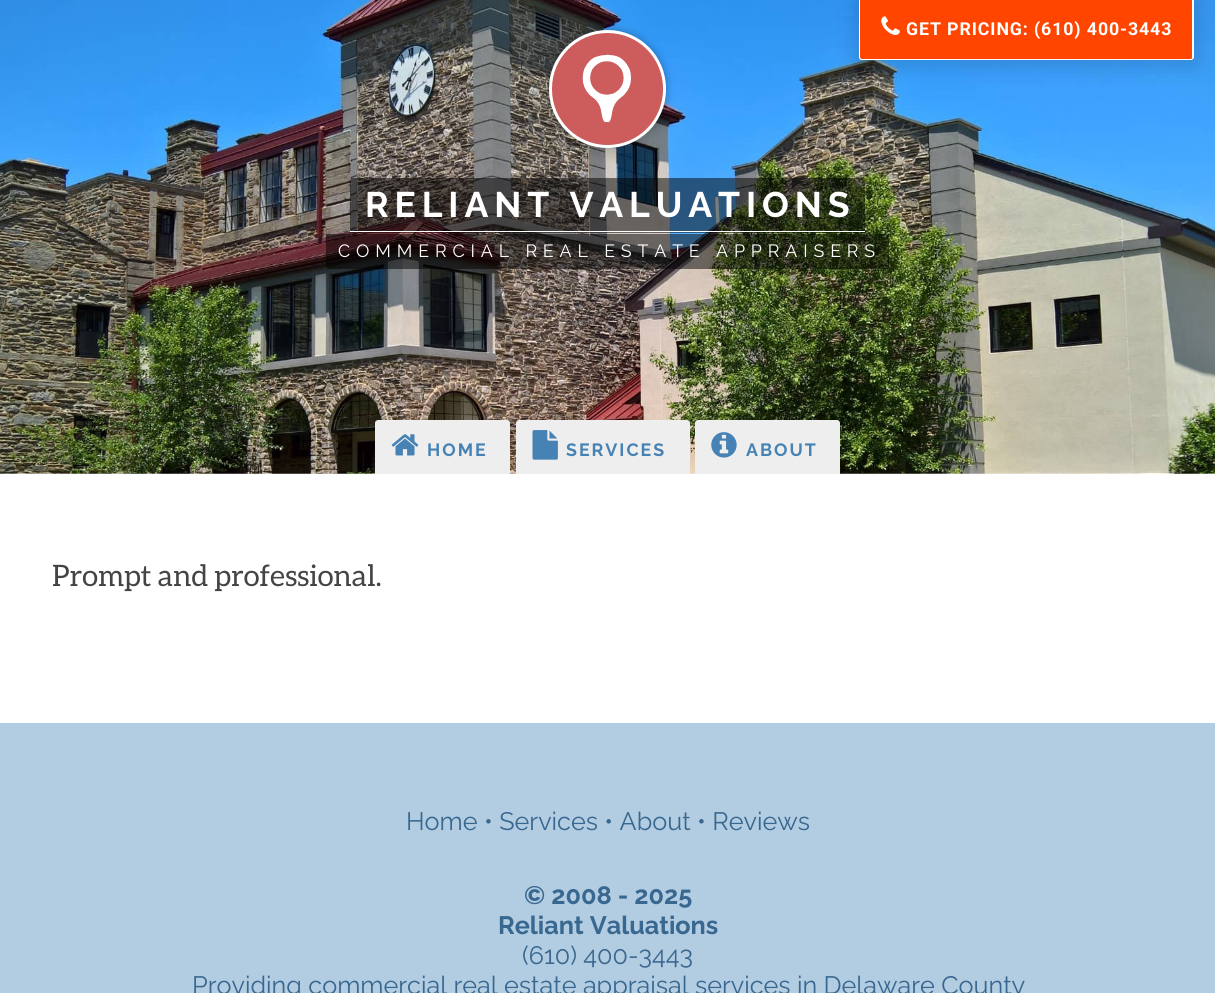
import math
import cairo

surface = cairo.ImageSurface(cairo.FORMAT_RGB24, 1215, 993)
ctx = cairo.Context(surface)
options = cairo.FontOptions()
options.set_hint_metrics(cairo.HINT_METRICS_OFF)
options.set_hint_style(cairo.HINT_STYLE_NONE)
ctx.set_font_options(options)
ctx.set_miter_limit(4)


def set_color(code):
    ctx.set_source_rgb(*(v / 255 for v in bytes.fromhex(code[-6:])))


def draw_text(x, y, s, family, size, color, bold=False, italic=False):
    ctx.select_font_face(family, cairo.FONT_SLANT_ITALIC if italic else cairo.FONT_SLANT_NORMAL, cairo.FONT_WEIGHT_BOLD if bold else cairo.FONT_WEIGHT_NORMAL)
    ctx.set_font_size(size)
    set_color(color)
    ctx.move_to(x, y)
    ctx.show_text(s)


def draw_spaced(x, y, s, letter, word):
    ctx.move_to(x, y)
    for ch in s:
        ctx.show_text(ch)
        ctx.rel_move_to(letter + word * (ch == ' '), 0)


def fill_rect(x, y, w, h, color):
    set_color(color)
    ctx.rectangle(x, y, w, h)
    ctx.fill()


def rounded_rect(x, y, w, h, r):
    ctx.new_sub_path()
    for i, (u, v) in enumerate([(x + w - r, y + h - r), (x + r, y + h - r), (x + r, y + r), (x + w - r, y + r)]):
        ctx.arc(u, v, r, i * math.pi / 2, (i + 1) * math.pi / 2)
    ctx.close_path()


def draw_shadow(x, y, w, h, r, blur, alpha):
    ctx.push_group_with_content(cairo.CONTENT_ALPHA)
    ctx.set_operator(cairo.OPERATOR_SOURCE)
    for i in range(15, -16, -2):
        e = blur * i / 6
        if min(w, h) + 2 * e > 0:
            ctx.set_source_rgba(0, 0, 0, alpha * math.erfc((i - 1) / 8.5) / 2)
            rounded_rect(x - e, y - e, w + 2 * e, h + 2 * e, max(0, min(r + e + blur * .6, min(w, h) / 2 + e)))
            ctx.fill()
    ctx.mask(ctx.pop_group())


def draw_image(path, x, y, w, h):
    ctx.save()
    ctx.set_source_surface(cairo.ImageSurface.create_from_png(path), x, y)
    ctx.rectangle(x, y, w, h)
    ctx.fill()
    ctx.restore()


set_color("#ffffff")
ctx.paint()
draw_image("assets/img2.png", 0, 0, 1215, 474)
set_color("#000000")
draw_shadow(851, -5, 350, 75, 10, 7.5, 0.1)
set_color("#ff4500")
ctx.new_path()
ctx.move_to(859, 0)
ctx.line_to(1194, 0)
ctx.line_to(1194, 57)
ctx.curve_to(1194, 58.5, 1192.5, 60, 1191, 60)
ctx.line_to(862, 60)
ctx.curve_to(860.5, 60, 859, 58.5, 859, 57)
ctx.close_path()
ctx.fill()
set_color("#ffffff")
ctx.set_fill_rule(cairo.FILL_RULE_EVEN_ODD)
ctx.new_path()
ctx.move_to(859, 0)
ctx.line_to(1194, 0)
ctx.line_to(1194, 57)
ctx.curve_to(1194, 59, 1192, 60, 1191, 60)
ctx.line_to(862, 60)
ctx.curve_to(860, 60, 859, 59, 859, 57)
ctx.close_path()
ctx.move_to(860, 0)
ctx.line_to(1192, 0)
ctx.line_to(1192, 57)
ctx.curve_to(1192, 58, 1192, 59, 1191, 59)
ctx.line_to(862, 59)
ctx.curve_to(861, 59, 860, 58, 860, 57)
ctx.close_path()
ctx.fill()
draw_image("assets/img1.png", 881, 16, 19, 19)
ctx.select_font_face("Roboto", cairo.FONT_SLANT_NORMAL, cairo.FONT_WEIGHT_BOLD)
ctx.set_font_size(17.75)
draw_spaced(906, 35, "GET PRICING: (610) 400-3443", 0.9, 0)
set_color("#000000")
draw_shadow(549, 38, 117, 117, 58.5, 6.5, 0.15)
draw_shadow(549, 28, 117, 117, 58.5, 3.5, 0.2)
set_color("#cd5c5c")
rounded_rect(550.5, 31.5, 114, 115, 57)
ctx.fill_preserve()
set_color("#ffffff")
ctx.set_line_width(3)
ctx.stroke()
draw_image("assets/img3.png", 582, 54, 49, 69)
ctx.set_source_rgba(0, 0, 0, 0.5)
ctx.new_path()
ctx.move_to(353, 178)
ctx.line_to(862, 178)
ctx.curve_to(863.5, 178, 865, 179.5, 865, 181)
ctx.line_to(865, 233)
ctx.line_to(350, 233)
ctx.line_to(350, 181)
ctx.curve_to(350, 179.5, 351.5, 178, 353, 178)
ctx.close_path()
ctx.fill()
fill_rect(350, 231, 515, 1, "#ffffff")
ctx.select_font_face("Raleway", cairo.FONT_SLANT_NORMAL, cairo.FONT_WEIGHT_BOLD)
ctx.set_font_size(35.5)
draw_spaced(365, 217, "RELIANT VALUATIONS", 5.9, 0)
ctx.set_source_rgba(0, 0, 0, 0.5)
ctx.new_path()
ctx.move_to(326, 234)
ctx.line_to(889, 234)
ctx.line_to(889, 266)
ctx.curve_to(889, 267.5, 887.5, 269, 886, 269)
ctx.line_to(329, 269)
ctx.curve_to(327.5, 269, 326, 267.5, 326, 266)
ctx.close_path()
ctx.fill()
ctx.select_font_face("Raleway")
ctx.set_font_size(17.75)
set_color("#ffffff")
draw_spaced(338, 257, "COMMERCIAL REAL ESTATE APPRAISERS", 5.9, 0)
set_color("#eeeeee")
ctx.new_path()
ctx.move_to(378, 420)
ctx.line_to(507, 420)
ctx.curve_to(508.5, 420, 510, 421.5, 510, 423)
ctx.line_to(510, 474)
ctx.line_to(375, 474)
ctx.line_to(375, 423)
ctx.curve_to(375, 421.5, 376.5, 420, 378, 420)
ctx.close_path()
ctx.fill()
draw_image("assets/img4.png", 391, 434, 28, 22)
ctx.select_font_face("Raleway", cairo.FONT_SLANT_NORMAL, cairo.FONT_WEIGHT_BOLD)
set_color("#4682b4")
draw_spaced(427, 456, "HOME", 2, 0)
set_color("#eeeeee")
ctx.new_path()
ctx.move_to(519, 420)
ctx.line_to(687, 420)
ctx.curve_to(688.5, 420, 690, 421.5, 690, 423)
ctx.line_to(690, 474)
ctx.line_to(516, 474)
ctx.line_to(516, 423)
ctx.curve_to(516, 421.5, 517.5, 420, 519, 420)
ctx.close_path()
ctx.fill()
draw_image("assets/img5.png", 532, 430, 26, 30)
set_color("#4682b4")
draw_spaced(566, 456, "SERVICES", 2, 0)
set_color("#eeeeee")
ctx.new_path()
ctx.move_to(698, 420)
ctx.line_to(837, 420)
ctx.curve_to(838.5, 420, 840, 421.5, 840, 423)
ctx.line_to(840, 474)
ctx.line_to(695, 474)
ctx.line_to(695, 423)
ctx.curve_to(695, 421.5, 696.5, 420, 698, 420)
ctx.close_path()
ctx.fill()
draw_image("assets/img6.png", 711, 432, 26, 26)
set_color("#4682b4")
draw_spaced(746, 456, "ABOUT", 2, 0)
draw_text(52, 586, "Prompt and professional.", "Aleo", 29.6, "#444444")
fill_rect(0, 723, 1215, 270, "#b2cce1")
draw_text(406, 830, "Home • Services • About • Reviews", "Raleway", 25.2, "#38678f")
draw_text(524, 904, "© 2008 - 2025", "Raleway", 25.2, "#38678f", bold=True)
draw_text(498, 934, "Reliant Valuations", "Raleway", 25.2, "#38678f", bold=True)
draw_text(522, 964, "(610) 400-3443", "Raleway", 25.2, "#38678f")
draw_text(192, 994, "Providing commercial real estate appraisal services in Delaware County", "Raleway", 25.2, "#38678f")
surface.write_to_png("output.png")
